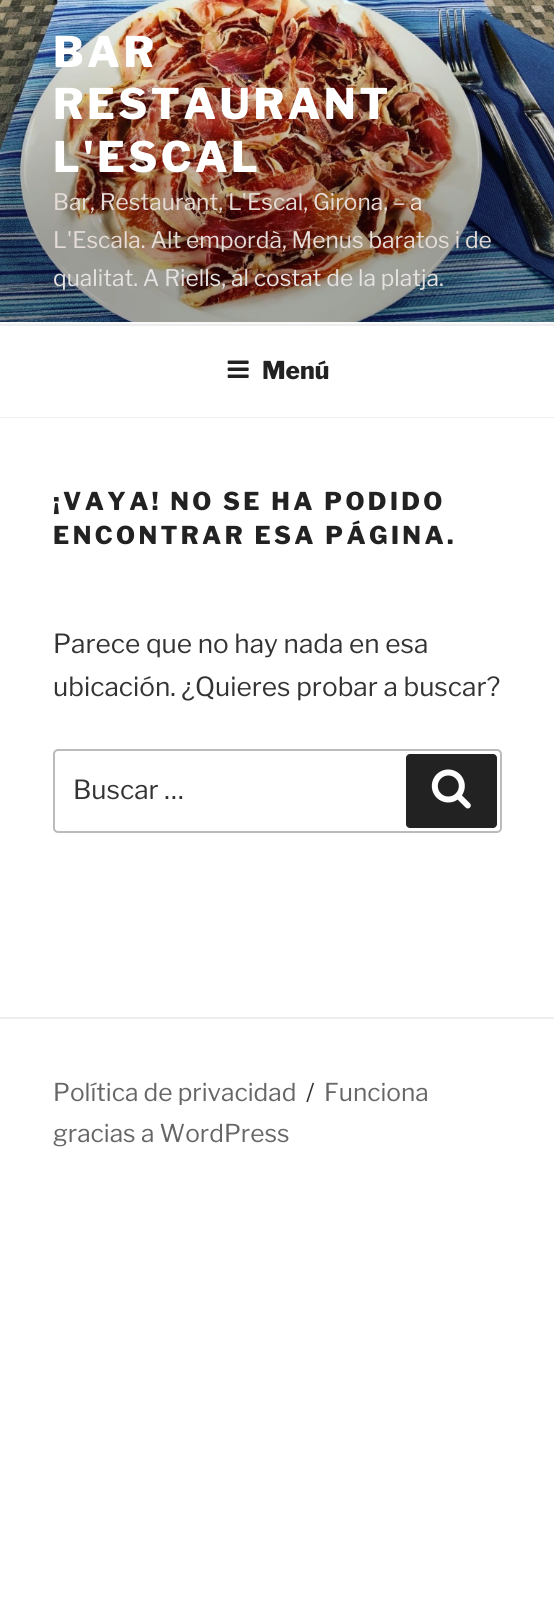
import math
import cairo

surface = cairo.ImageSurface(cairo.FORMAT_RGB24, 554, 1604)
ctx = cairo.Context(surface)
options = cairo.FontOptions()
options.set_hint_metrics(cairo.HINT_METRICS_OFF)
options.set_hint_style(cairo.HINT_STYLE_NONE)
ctx.set_font_options(options)
ctx.set_miter_limit(4)


def set_color(code):
    ctx.set_source_rgb(*(v / 255 for v in bytes.fromhex(code[-6:])))


def draw_text(x, y, s, family, size, color, bold=False, italic=False):
    ctx.select_font_face(family, cairo.FONT_SLANT_ITALIC if italic else cairo.FONT_SLANT_NORMAL, cairo.FONT_WEIGHT_BOLD if bold else cairo.FONT_WEIGHT_NORMAL)
    ctx.set_font_size(size)
    set_color(color)
    ctx.move_to(x, y)
    ctx.show_text(s)


def draw_spaced(x, y, s, letter, word):
    ctx.move_to(x, y)
    for ch in s:
        ctx.show_text(ch)
        ctx.rel_move_to(letter + word * (ch == ' '), 0)


def fill_rect(x, y, w, h, color):
    set_color(color)
    ctx.rectangle(x, y, w, h)
    ctx.fill()


def rounded_rect(x, y, w, h, r):
    ctx.new_sub_path()
    for i, (u, v) in enumerate([(x + w - r, y + h - r), (x + r, y + h - r), (x + r, y + r), (x + w - r, y + r)]):
        ctx.arc(u, v, r, i * math.pi / 2, (i + 1) * math.pi / 2)
    ctx.close_path()


def draw_image(path, x, y, w, h):
    ctx.save()
    ctx.set_source_surface(cairo.ImageSurface.create_from_png(path), x, y)
    ctx.rectangle(x, y, w, h)
    ctx.fill()
    ctx.restore()


set_color("#ffffff")
ctx.paint()
fill_rect(0, 322, 554, 2, "#fafafa")
draw_image("assets/img1.png", 0, 0, 554, 322)
ctx.select_font_face("Libre Franklin Thin")
ctx.set_font_size(42)
set_color("#ffffff")
draw_spaced(53, 67, "BAR", 3.4, 0)
draw_spaced(53, 119, "RESTAURANT", 3.4, 0)
draw_spaced(53, 172, "L'ESCAL", 3.4, 0)
draw_text(53, 210, "Bar, Restaurant, L'Escal, Girona, –", "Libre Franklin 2 Thin", 22.75, "#e6dcd7")
draw_text(410, 210, "a", "Libre Franklin 2 Thin", 22.75, "#ebe2dc")
draw_text(53, 248, "L'Escala. Alt empordà, Menus baratos i de", "Libre Franklin 2 Thin", 22.75, "#e6dcd7")
draw_text(53, 286, "qualitat. A Riells, al costat de la platja.", "Libre Franklin 2 Thin", 22.75, "#e5e2e1")
fill_rect(0, 324, 554, 2, "#eeeeee")
fill_rect(0, 417, 554, 1, "#eeeeee")
draw_image("assets/img2.png", 227, 360, 22, 18)
draw_text(262, 379, "Menú", "Libre Franklin Thin", 24.5, "#222222")
draw_spaced(53, 510, "¡VAYA! NO SE HA PODIDO", 3.4, 0)
draw_spaced(53, 544, "ENCONTRAR ESA PÁGINA.", 3.4, 0)
draw_text(53, 653, "Parece que no hay nada en esa", "Libre Franklin 2 Thin", 26.25, "#333333")
draw_text(53, 696, "ubicación. ¿Quieres probar a buscar?", "Libre Franklin 2 Thin", 26.25, "#333333")
rounded_rect(54, 750, 447, 82, 4)
set_color("#bbbbbb")
ctx.stroke()
draw_text(73, 799, "Buscar …", "Libre Franklin 2 Thin", 26.25, "#333333")
set_color("#222222")
rounded_rect(406, 754, 91, 74, 4)
ctx.fill()
draw_image("assets/img3.png", 431, 769, 40, 40)
fill_rect(0, 1017, 554, 2, "#eeeeee")
draw_text(53, 1101, "Política de privacidad", "Libre Franklin 2 Thin", 24.5, "#666666")
draw_text(306, 1101, "/", "Libre Franklin 2 Thin", 24.5, "#333333")
draw_text(324, 1101, "Funciona", "Libre Franklin 2 Thin", 24.5, "#666666")
draw_text(53, 1142, "gracias a WordPress", "Libre Franklin 2 Thin", 24.5, "#666666")
surface.write_to_png("output.png")
